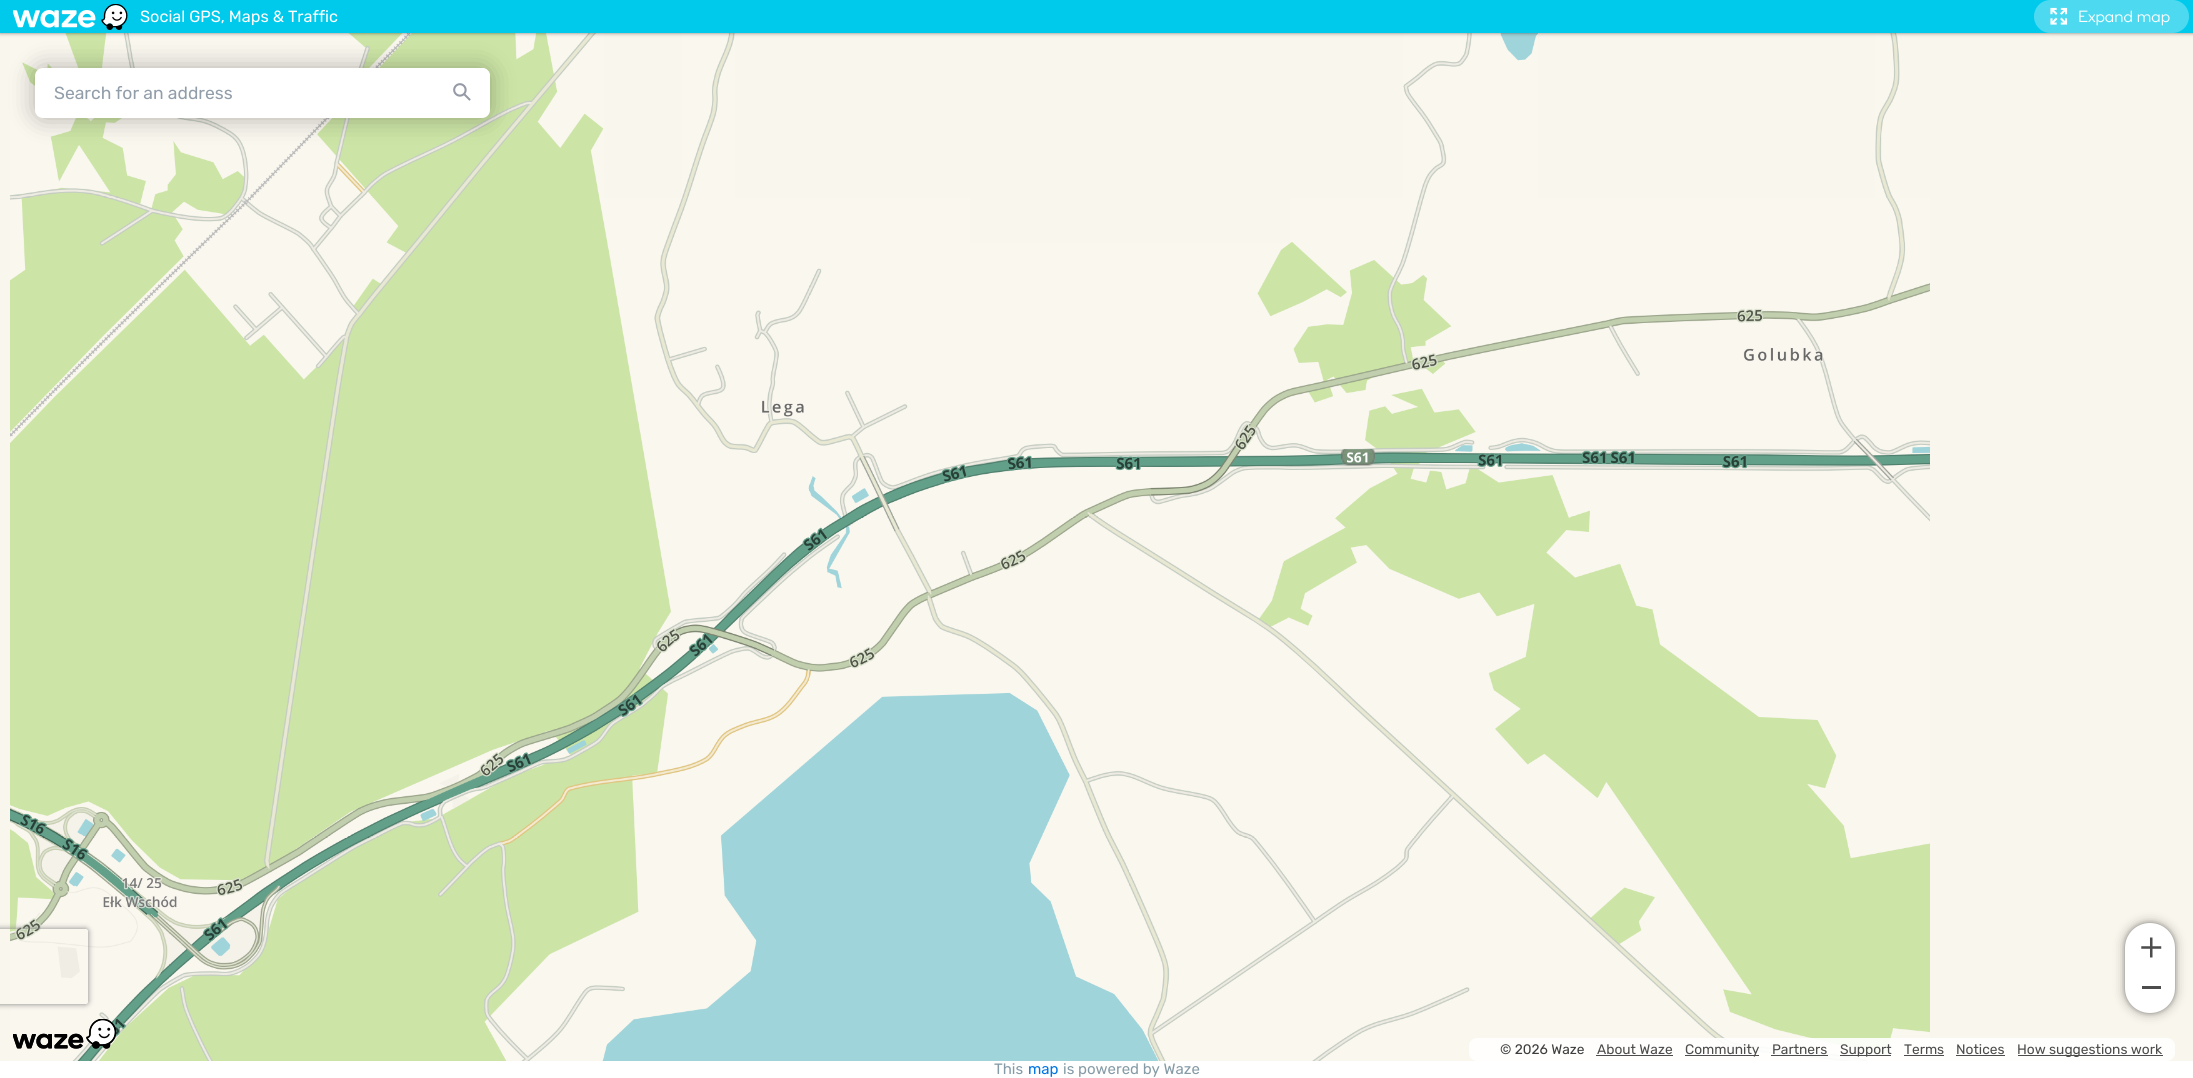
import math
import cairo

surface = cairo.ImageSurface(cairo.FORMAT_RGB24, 2193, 1078)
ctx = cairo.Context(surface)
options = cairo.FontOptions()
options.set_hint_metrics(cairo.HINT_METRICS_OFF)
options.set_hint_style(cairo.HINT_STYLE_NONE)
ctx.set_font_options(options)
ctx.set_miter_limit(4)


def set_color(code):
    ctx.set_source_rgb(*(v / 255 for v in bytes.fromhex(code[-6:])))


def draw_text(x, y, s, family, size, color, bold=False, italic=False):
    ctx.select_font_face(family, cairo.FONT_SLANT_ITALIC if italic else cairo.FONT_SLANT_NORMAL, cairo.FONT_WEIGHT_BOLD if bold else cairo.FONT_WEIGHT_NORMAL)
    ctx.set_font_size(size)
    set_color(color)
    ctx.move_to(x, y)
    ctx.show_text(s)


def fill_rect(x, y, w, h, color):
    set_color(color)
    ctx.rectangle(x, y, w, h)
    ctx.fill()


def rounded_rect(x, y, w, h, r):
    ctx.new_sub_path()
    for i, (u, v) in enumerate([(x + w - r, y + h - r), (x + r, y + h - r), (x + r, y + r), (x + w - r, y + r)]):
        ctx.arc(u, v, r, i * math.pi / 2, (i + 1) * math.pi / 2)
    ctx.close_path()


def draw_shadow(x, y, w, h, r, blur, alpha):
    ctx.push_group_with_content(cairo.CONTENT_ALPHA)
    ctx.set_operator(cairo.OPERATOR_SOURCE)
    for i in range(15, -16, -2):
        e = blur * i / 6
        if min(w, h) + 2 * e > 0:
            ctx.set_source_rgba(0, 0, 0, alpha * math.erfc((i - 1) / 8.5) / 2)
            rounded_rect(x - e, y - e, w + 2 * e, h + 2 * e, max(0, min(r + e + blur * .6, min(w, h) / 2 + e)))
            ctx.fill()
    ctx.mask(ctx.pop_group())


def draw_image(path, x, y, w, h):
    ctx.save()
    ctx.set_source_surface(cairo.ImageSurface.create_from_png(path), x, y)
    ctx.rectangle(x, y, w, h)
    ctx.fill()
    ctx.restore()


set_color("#ffffff")
ctx.paint()
fill_rect(0, 33, 2193, 1028, "#f9f6ed")
draw_image("assets/img3.png", 10, 33, 320, 165)
draw_image("assets/img4.png", 330, 33, 274, 165)
draw_image("assets/img5.png", 682, 33, 53, 165)
draw_image("assets/img6.png", 1403, 33, 135, 165)
draw_image("assets/img7.png", 1875, 33, 25, 165)
set_color("#000000")
draw_shadow(0, 0, 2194, 33, 0, 2, 0.5)
draw_shadow(35, 68, 455, 50, 8, 12.5, 0.3)
fill_rect(0, 0, 2193, 33, "#00caeb")
draw_image("assets/img1.png", 13, 4, 115, 26)
draw_text(140, 22, "Social GPS, Maps & Traffic", "Rubik", 16.25, "#ffffff")
set_color("#4ddaf1")
rounded_rect(2034, 0, 155, 33, 16.5)
ctx.fill()
draw_image("assets/img2.png", 2050, 7, 18, 18)
draw_text(2078, 22, "Expand map", "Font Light", 16.25, "#ffffff")
draw_image("assets/img20.png", 10, 838, 320, 223)
ctx.save()
ctx.set_fill_rule(cairo.FILL_RULE_EVEN_ODD)
ctx.new_path()
ctx.move_to(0, 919)
ctx.line_to(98, 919)
ctx.line_to(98, 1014)
ctx.line_to(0, 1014)
ctx.close_path()
ctx.move_to(-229.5, 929)
ctx.line_to(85.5, 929)
ctx.curve_to(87, 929, 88, 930, 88, 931.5)
ctx.line_to(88, 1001.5)
ctx.curve_to(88, 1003, 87, 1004, 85.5, 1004)
ctx.line_to(-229.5, 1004)
ctx.curve_to(-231, 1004, -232, 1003, -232, 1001.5)
ctx.line_to(-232, 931.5)
ctx.curve_to(-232, 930, -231, 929, -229.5, 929)
ctx.close_path()
ctx.clip()
set_color("#808080")
draw_shadow(-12, 929, 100, 75, 2.5, 3, 1)
ctx.restore()
draw_image("assets/img8.png", 10, 198, 320, 320)
draw_image("assets/img9.png", 330, 198, 320, 320)
draw_image("assets/img10.png", 650, 198, 320, 320)
draw_image("assets/img11.png", 970, 243, 320, 275)
draw_image("assets/img12.png", 1290, 198, 320, 320)
draw_image("assets/img13.png", 1610, 198, 320, 320)
draw_image("assets/img14.png", 10, 518, 320, 320)
draw_image("assets/img15.png", 330, 518, 320, 320)
draw_image("assets/img16.png", 650, 518, 320, 320)
draw_image("assets/img17.png", 970, 518, 320, 320)
draw_image("assets/img18.png", 1290, 518, 320, 320)
draw_image("assets/img19.png", 1610, 518, 320, 320)
draw_image("assets/img21.png", 330, 838, 320, 223)
draw_image("assets/img22.png", 650, 838, 320, 223)
draw_image("assets/img23.png", 970, 838, 320, 223)
draw_image("assets/img24.png", 1290, 838, 320, 223)
draw_image("assets/img25.png", 1610, 838, 320, 223)
rounded_rect(35, 68, 455, 50, 8)
ctx.fill()
draw_text(54, 99, "Search for an address", "Rubik", 17.5, "#919da9")
gradient = cairo.LinearGradient(428, 91, 490, 91)
gradient.add_color_stop_rgba(0, 1, 1, 1, 0)
gradient.add_color_stop_rgba(0.25, 1, 1, 1, 1)
gradient.add_color_stop_rgba(1, 1, 1, 1, 1)
ctx.set_source(gradient)
rounded_rect(428, 68, 62, 47, 8)
ctx.fill()
draw_image("assets/img26.png", 453, 83, 18, 18)
draw_image("assets/img27.png", 13, 1019, 104, 30)
set_color("#000000")
draw_shadow(2125, 923, 50, 90, 25, 6, 0.3)
draw_shadow(2125, 923, 50, 90, 25, 2.5, 0.3)
set_color("#ffffff")
ctx.new_path()
ctx.move_to(2150, 923)
ctx.curve_to(2164, 923, 2175, 934, 2175, 948)
ctx.line_to(2175, 968)
ctx.line_to(2125, 968)
ctx.line_to(2125, 948)
ctx.curve_to(2125, 934, 2136, 923, 2150, 923)
ctx.close_path()
ctx.fill()
draw_image("assets/img28.png", 2141, 937, 21, 21)
ctx.new_path()
ctx.move_to(2125, 968)
ctx.line_to(2175, 968)
ctx.line_to(2175, 988)
ctx.curve_to(2175, 1002, 2164, 1013, 2150, 1013)
ctx.curve_to(2136, 1013, 2125, 1002, 2125, 988)
ctx.close_path()
ctx.fill()
fill_rect(2142, 986, 19, 3, "#4c4c4c")
ctx.set_source_rgba(1, 1, 1, 0.9)
rounded_rect(1469, 1038, 706, 23, 8)
ctx.fill()
draw_text(1500, 1054, "© 2026 Waze", "Rubik", 13.75, "#3d3d3d")
draw_text(1597, 1054, "About Waze", "Rubik", 13.75, "#4c4c4c")
fill_rect(1596, 1055, 77, 1, "#4c4c4c")
fill_rect(1685, 1055, 74, 1, "#4c4c4c")
draw_text(1685, 1054, "Community", "Rubik", 13.75, "#4c4c4c")
draw_text(1772, 1054, "Partners", "Rubik", 13.75, "#4c4c4c")
fill_rect(1771, 1055, 57, 1, "#4c4c4c")
fill_rect(1840, 1055, 51, 1, "#4c4c4c")
draw_text(1840, 1054, "Support", "Rubik", 13.75, "#4c4c4c")
draw_text(1904, 1054, "Terms", "Rubik", 13.75, "#4c4c4c")
fill_rect(1904, 1055, 40, 1, "#4c4c4c")
draw_text(1956, 1054, "Notices", "Rubik", 13.75, "#4c4c4c")
fill_rect(1956, 1055, 49, 1, "#4c4c4c")
fill_rect(2018, 1055, 145, 1, "#4c4c4c")
draw_text(2017, 1054, "How suggestions work", "Rubik", 13.75, "#4c4c4c")
draw_text(994, 1074, "This", "Rubik", 15, "#859ba6")
draw_text(1028, 1074, "map", "Rubik", 15, "#0075e3")
draw_text(1063, 1074, "is powered by Waze", "Rubik", 15, "#859ba6")
surface.write_to_png("output.png")
